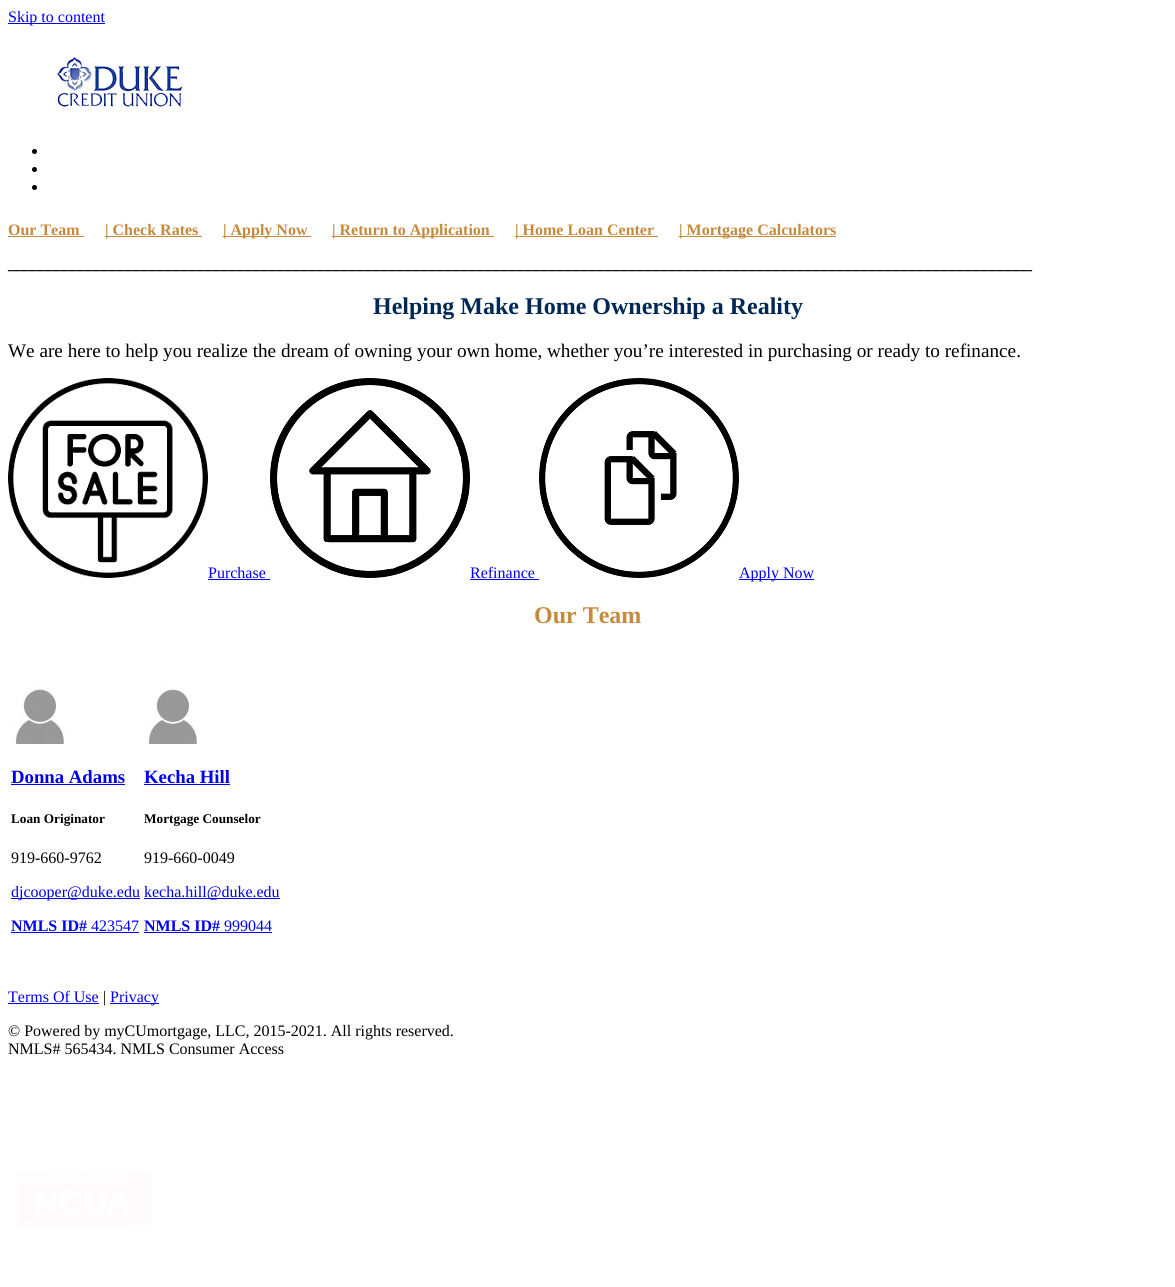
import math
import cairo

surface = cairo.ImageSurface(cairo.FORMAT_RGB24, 1175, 1287)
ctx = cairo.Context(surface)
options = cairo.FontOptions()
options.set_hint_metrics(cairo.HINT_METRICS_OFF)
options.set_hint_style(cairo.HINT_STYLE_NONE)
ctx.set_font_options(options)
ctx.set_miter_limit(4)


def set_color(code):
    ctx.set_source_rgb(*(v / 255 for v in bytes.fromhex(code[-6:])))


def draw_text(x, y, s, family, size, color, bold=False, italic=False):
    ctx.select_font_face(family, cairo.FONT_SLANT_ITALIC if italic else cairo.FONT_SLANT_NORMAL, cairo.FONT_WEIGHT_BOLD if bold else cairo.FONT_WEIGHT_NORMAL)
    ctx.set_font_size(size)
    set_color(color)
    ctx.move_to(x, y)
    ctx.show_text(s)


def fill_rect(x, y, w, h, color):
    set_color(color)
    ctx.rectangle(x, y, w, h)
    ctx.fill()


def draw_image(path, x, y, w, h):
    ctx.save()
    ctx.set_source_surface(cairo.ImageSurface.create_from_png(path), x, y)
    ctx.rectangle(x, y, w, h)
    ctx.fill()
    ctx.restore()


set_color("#ffffff")
ctx.paint()
fill_rect(8, 23, 97, 1, "#0000ee")
draw_text(8, 22, "Skip to content", "Liberation Serif", 16, "#0000ee")
draw_image("assets/img1.png", 57, 57, 126, 50)
set_color("#000000")
ctx.arc(34.5, 151.5, 2.5, 0, 2 * math.pi)
ctx.fill()
ctx.arc(34.5, 169.5, 2.5, 0, 2 * math.pi)
ctx.fill()
ctx.arc(34.5, 187.5, 2.5, 0, 2 * math.pi)
ctx.fill()
draw_text(8, 235, "Our Team", "Liberation Serif", 16, "#c58a3b", bold=True)
fill_rect(8, 236, 76, 1, "#c58a3b")
fill_rect(105, 236, 97, 1, "#c58a3b")
draw_text(105, 235, "| Check Rates", "Liberation Serif", 16, "#c58a3b", bold=True)
fill_rect(223, 236, 88, 1, "#c58a3b")
draw_text(223, 235, "| Apply Now", "Liberation Serif", 16, "#c58a3b", bold=True)
fill_rect(332, 236, 162, 1, "#c58a3b")
draw_text(332, 235, "| Return to Application", "Liberation Serif", 16, "#c58a3b", bold=True)
fill_rect(515, 236, 143, 1, "#c58a3b")
draw_text(515, 235, "| Home Loan Center", "Liberation Serif", 16, "#c58a3b", bold=True)
fill_rect(679, 236, 157, 1, "#c58a3b")
draw_text(679, 235, "| Mortgage Calculators", "Liberation Serif", 16, "#c58a3b", bold=True)
draw_text(8, 269, "________________________________________________________________________________________________________________________________", "Liberation Serif", 16, "#000000", bold=True)
draw_text(373, 314, "Helping Make Home Ownership a Reality", "Liberation Serif", 24, "#002855", bold=True)
draw_text(8, 357, "We are here to help you realize the dream of owning your own home, whether you’re interested in purchasing or ready to refinance.", "Liberation Serif", 19.2, "#000000")
draw_image("assets/img2.png", 8, 378, 200, 200)
draw_text(208, 578, "Purchase", "Liberation Serif", 16, "#0000ee")
fill_rect(208, 579, 62, 1, "#0000ee")
draw_image("assets/img3.png", 270, 378, 200, 200)
draw_text(470, 578, "Refinance", "Liberation Serif", 16, "#0000ee")
fill_rect(470, 579, 69, 1, "#0000ee")
draw_image("assets/img4.png", 539, 378, 200, 200)
fill_rect(739, 579, 75, 1, "#0000ee")
draw_text(739, 578, "Apply Now", "Liberation Serif", 16, "#0000ee")
draw_text(534, 623, "Our Team", "Liberation Serif", 24, "#c58a3b", bold=True)
draw_image("assets/img5.png", 12, 686, 54, 58)
draw_text(11, 783, "Donna Adams", "Liberation Serif", 18.75, "#0000ee", bold=True)
fill_rect(11, 784, 114, 1, "#0000ee")
draw_text(11, 823, "Loan Originator", "Liberation Serif", 13.25, "#000000", bold=True)
draw_text(11, 863, "919-660-9762", "Liberation Serif", 16, "#000000")
fill_rect(11, 898, 129, 1, "#0000ee")
draw_text(11, 897, "djcooper@duke.edu", "Liberation Serif", 16, "#0000ee")
draw_text(11, 931, "NMLS ID#", "Liberation Serif", 16, "#0000ee", bold=True)
fill_rect(11, 932, 128, 1, "#0000ee")
draw_text(91, 931, "423547", "Liberation Serif", 16, "#0000ee")
draw_image("assets/img5.png", 145, 686, 54, 58)
draw_text(144, 783, "Kecha Hill", "Liberation Serif", 18.75, "#0000ee", bold=True)
fill_rect(144, 784, 86, 1, "#0000ee")
draw_text(144, 823, "Mortgage Counselor", "Liberation Serif", 13.25, "#000000", bold=True)
draw_text(144, 863, "919-660-0049", "Liberation Serif", 16, "#000000")
fill_rect(144, 898, 136, 1, "#0000ee")
draw_text(144, 897, "kecha.hill@duke.edu", "Liberation Serif", 16, "#0000ee")
draw_text(144, 931, "NMLS ID#", "Liberation Serif", 16, "#0000ee", bold=True)
fill_rect(144, 932, 128, 1, "#0000ee")
draw_text(224, 931, "999044", "Liberation Serif", 16, "#0000ee")
draw_text(8, 1002, "Terms Of Use", "Liberation Serif", 16, "#0000ee")
fill_rect(8, 1003, 91, 1, "#0000ee")
draw_text(103, 1002, "|", "Liberation Serif", 16, "#000000")
fill_rect(110, 1003, 49, 1, "#0000ee")
draw_text(110, 1002, "Privacy", "Liberation Serif", 16, "#0000ee")
draw_text(8, 1036, "© Powered by myCUmortgage, LLC, 2015-2021. All rights reserved.", "Liberation Serif", 16, "#000000")
draw_text(8, 1054, "NMLS# 565434. NMLS Consumer Access", "Liberation Serif", 16, "#000000")
draw_image("assets/img6.png", 18, 1172, 133, 54)
surface.write_to_png("output.png")
